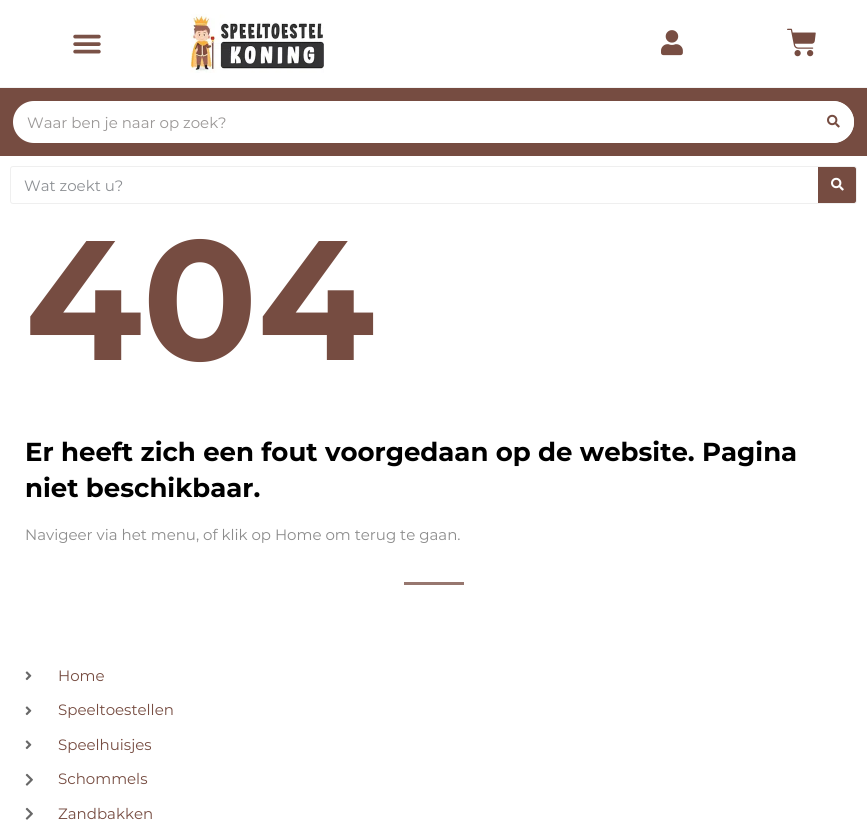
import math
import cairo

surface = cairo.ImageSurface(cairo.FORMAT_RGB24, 867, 830)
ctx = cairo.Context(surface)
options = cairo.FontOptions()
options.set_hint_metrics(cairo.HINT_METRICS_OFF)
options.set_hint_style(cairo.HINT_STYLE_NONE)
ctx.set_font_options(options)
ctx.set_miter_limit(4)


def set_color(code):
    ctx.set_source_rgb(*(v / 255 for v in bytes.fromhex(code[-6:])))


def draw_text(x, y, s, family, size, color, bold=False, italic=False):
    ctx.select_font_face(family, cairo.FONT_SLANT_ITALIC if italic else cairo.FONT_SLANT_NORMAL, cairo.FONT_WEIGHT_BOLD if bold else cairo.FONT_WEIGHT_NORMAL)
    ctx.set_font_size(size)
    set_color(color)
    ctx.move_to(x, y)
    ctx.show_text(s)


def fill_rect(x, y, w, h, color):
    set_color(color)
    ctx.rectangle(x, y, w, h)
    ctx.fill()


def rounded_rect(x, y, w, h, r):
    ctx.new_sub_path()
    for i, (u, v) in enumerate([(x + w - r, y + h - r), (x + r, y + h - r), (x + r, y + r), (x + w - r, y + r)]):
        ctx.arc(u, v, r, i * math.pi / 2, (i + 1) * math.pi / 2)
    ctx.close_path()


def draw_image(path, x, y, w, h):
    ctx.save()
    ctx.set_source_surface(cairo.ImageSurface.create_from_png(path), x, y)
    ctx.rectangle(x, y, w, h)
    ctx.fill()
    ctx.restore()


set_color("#ffffff")
ctx.paint()
fill_rect(0, 87, 867, 1, "#f3f3f3")
draw_image("assets/img1.png", 73, 34, 28, 20)
draw_image("assets/img2.png", 190, 14, 134, 59)
draw_image("assets/img3.png", 661, 30, 22, 26)
draw_image("assets/img4.png", 787, 28, 29, 29)
fill_rect(0, 88, 867, 68, "#764c41")
set_color("#ffffff")
rounded_rect(13, 101, 841, 42, 21)
ctx.fill()
draw_text(27, 128, "Waar ben je naar op zoek?", "Montserrat", 15, "#9a9796")
set_color("#ffffff")
ctx.new_path()
ctx.move_to(812, 101)
ctx.line_to(833, 101)
ctx.curve_to(844.5, 101, 854, 110.5, 854, 122)
ctx.curve_to(854, 133.5, 844.5, 143, 833, 143)
ctx.line_to(812, 143)
ctx.close_path()
ctx.fill()
draw_image("assets/img5.png", 827, 114, 13, 14)
rounded_rect(10.5, 166.5, 846, 37, 2.5)
set_color("#efefef")
ctx.set_line_width(1)
ctx.stroke()
draw_text(24, 191, "Wat zoekt u?", "Montserrat", 15, "#8c8f93")
set_color("#764c41")
ctx.new_path()
ctx.move_to(818, 167)
ctx.line_to(854, 167)
ctx.curve_to(855, 167, 856, 168, 856, 169)
ctx.line_to(856, 201)
ctx.curve_to(856, 202, 855, 203, 854, 203)
ctx.line_to(818, 203)
ctx.close_path()
ctx.fill()
draw_image("assets/img6.png", 831, 177, 13, 14)
draw_text(25, 360, "404", "Montserrat", 170, "#764c41", bold=True)
draw_text(25, 461, "Er heeft zich een fout voorgedaan op de website. Pagina", "Montserrat", 26, "#000000", bold=True)
draw_text(25, 497, "niet beschikbaar.", "Montserrat", 26, "#000000", bold=True)
draw_text(25, 540, "Navigeer via het menu, of klik op Home om terug te gaan.", "Montserrat", 15, "#8c8c8c")
fill_rect(404, 582, 60, 3, "#97776f")
draw_image("assets/img7.png", 25, 671, 7, 10)
draw_text(58, 681, "Home", "Montserrat", 15, "#764c41")
draw_image("assets/img7.png", 25, 706, 7, 10)
draw_text(58, 715, "Speeltoestellen", "Montserrat", 15, "#764c41")
draw_image("assets/img7.png", 25, 740, 7, 10)
draw_text(58, 750, "Speelhuisjes", "Montserrat", 15, "#764c41")
draw_image("assets/img8.png", 25, 773, 8, 13)
draw_text(58, 784, "Schommels", "Montserrat", 15, "#764c41")
draw_image("assets/img8.png", 25, 807, 8, 13)
draw_text(58, 819, "Zandbakken", "Montserrat", 15, "#764c41")
surface.write_to_png("output.png")
